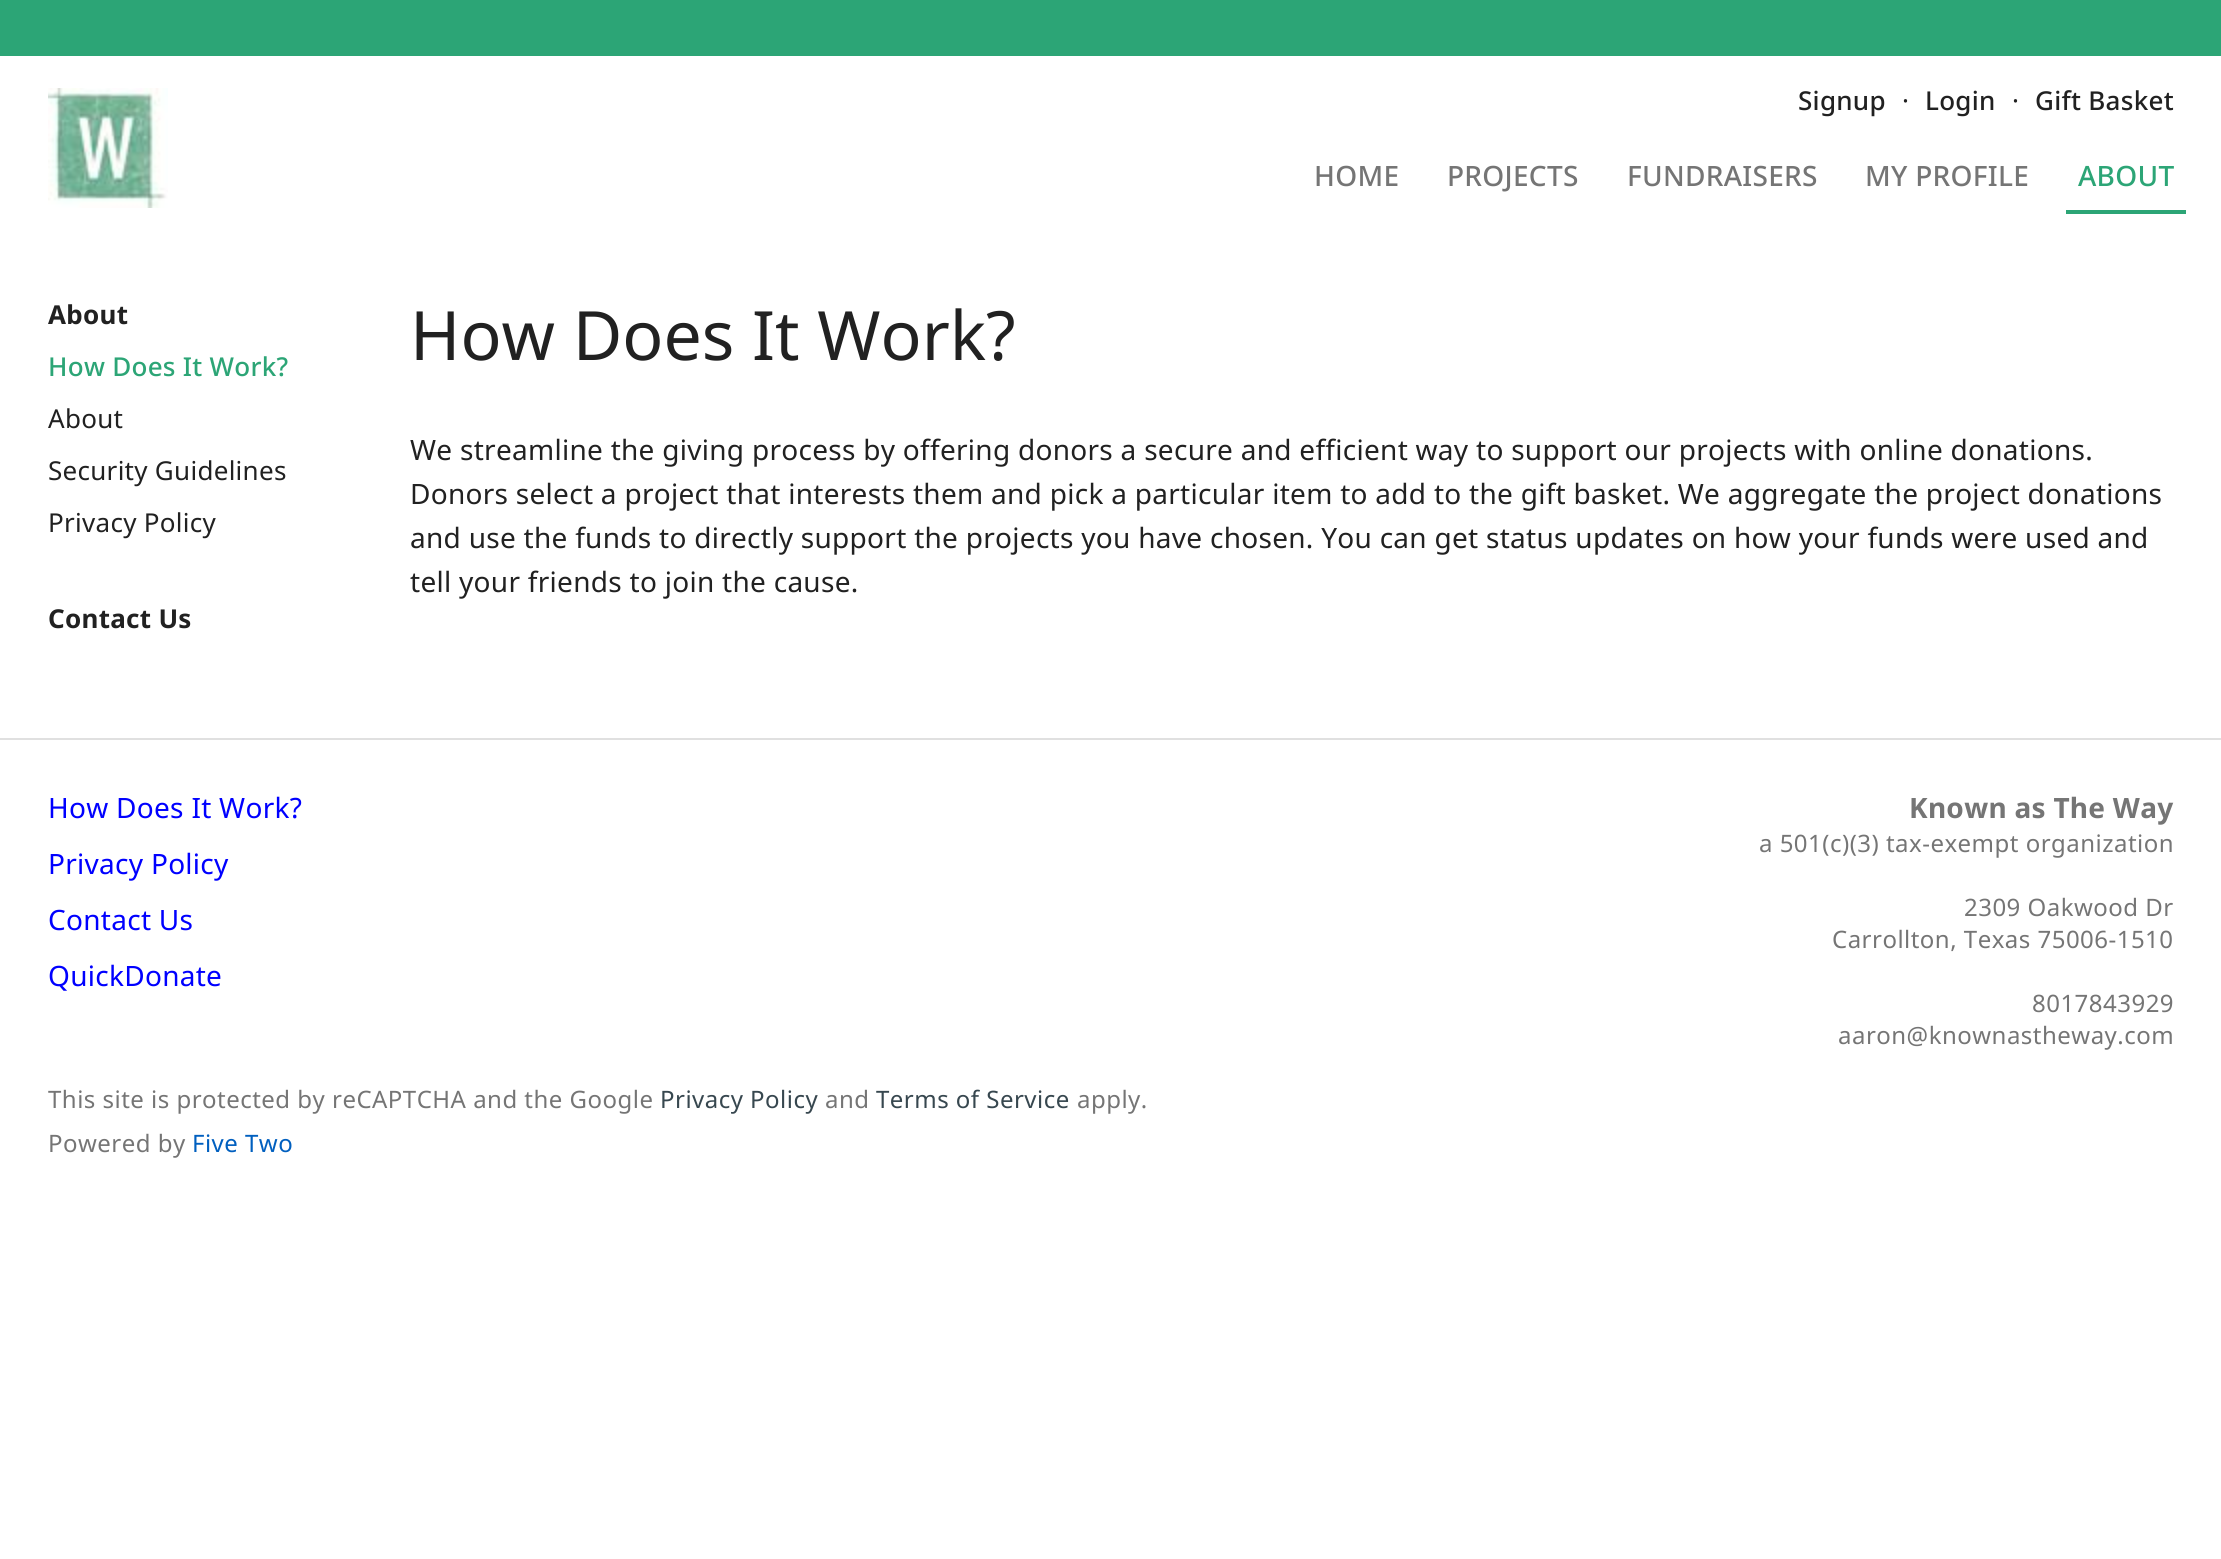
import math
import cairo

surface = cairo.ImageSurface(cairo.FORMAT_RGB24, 2221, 1559)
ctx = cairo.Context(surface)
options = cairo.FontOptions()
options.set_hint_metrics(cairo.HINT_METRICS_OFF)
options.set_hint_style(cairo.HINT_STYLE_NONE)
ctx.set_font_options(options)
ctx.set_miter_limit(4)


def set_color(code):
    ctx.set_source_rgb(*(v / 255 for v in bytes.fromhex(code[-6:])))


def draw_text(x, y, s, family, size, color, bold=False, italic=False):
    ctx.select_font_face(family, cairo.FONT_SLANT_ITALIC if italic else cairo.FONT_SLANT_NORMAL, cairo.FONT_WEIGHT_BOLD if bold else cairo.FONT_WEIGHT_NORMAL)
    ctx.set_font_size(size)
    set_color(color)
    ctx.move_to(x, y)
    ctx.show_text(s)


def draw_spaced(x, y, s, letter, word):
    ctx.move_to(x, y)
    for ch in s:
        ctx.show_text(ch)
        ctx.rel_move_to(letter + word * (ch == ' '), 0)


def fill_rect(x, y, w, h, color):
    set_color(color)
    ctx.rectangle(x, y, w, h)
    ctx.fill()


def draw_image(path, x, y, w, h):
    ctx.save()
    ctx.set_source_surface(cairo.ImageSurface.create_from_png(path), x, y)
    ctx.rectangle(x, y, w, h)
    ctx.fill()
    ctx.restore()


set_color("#ffffff")
ctx.paint()
fill_rect(0, 0, 2221, 56, "#2ca576")
draw_image("assets/img1.png", 48, 88, 120, 120)
ctx.select_font_face("Noto Sans Medium")
ctx.set_font_size(26)
set_color("#212121")
draw_spaced(1798, 110, "Signup", 0.28, 0)
ctx.select_font_face("Noto Sans")
draw_spaced(1902, 110, "·", 0.28, 0)
ctx.select_font_face("Noto Sans Medium")
draw_spaced(1925, 110, "Login", 0.28, 0)
ctx.select_font_face("Noto Sans")
draw_spaced(2012, 110, "·", 0.28, 0)
ctx.select_font_face("Noto Sans Medium")
draw_spaced(2035, 110, "Gift Basket", 0.28, 0)
ctx.set_font_size(28)
set_color("#757575")
draw_spaced(1314, 186, "HOME", 0.28, 0)
draw_spaced(1447, 186, "PROJECTS", 0.28, 0)
draw_spaced(1627, 186, "FUNDRAISERS", 0.28, 0)
draw_spaced(1865, 186, "MY PROFILE", 0.28, 0)
fill_rect(2066, 210, 120, 4, "#2ca576")
draw_spaced(2078, 186, "ABOUT", 0.28, 0)
ctx.select_font_face("Noto Sans", cairo.FONT_SLANT_NORMAL, cairo.FONT_WEIGHT_BOLD)
ctx.set_font_size(26)
set_color("#212121")
draw_spaced(48, 324, "About", 0.28, 0)
ctx.select_font_face("Noto Sans Medium")
set_color("#2ca576")
draw_spaced(48, 376, "How Does It Work?", 0.28, 0)
ctx.select_font_face("Noto Sans")
set_color("#212121")
draw_spaced(48, 428, "About", 0.28, 0)
draw_spaced(48, 480, "Security Guidelines", 0.28, 0)
draw_spaced(48, 532, "Privacy Policy", 0.28, 0)
ctx.select_font_face("Noto Sans", cairo.FONT_SLANT_NORMAL, cairo.FONT_WEIGHT_BOLD)
draw_spaced(48, 628, "Contact Us", 0.28, 0)
draw_text(410, 360, "How Does It Work?", "Noto Sans", 68, "#212121")
ctx.set_font_size(28)
draw_spaced(410, 460, "We streamline the giving process by offering donors a secure and efficient way to support our projects with online donations.", 0.28, 0)
draw_spaced(410, 504, "Donors select a project that interests them and pick a particular item to add to the gift basket. We aggregate the project donations", 0.28, 0)
draw_spaced(410, 548, "and use the funds to directly support the projects you have chosen. You can get status updates on how your funds were used and", 0.28, 0)
draw_spaced(410, 592, "tell your friends to join the cause.", 0.28, 0)
fill_rect(0, 738, 2221, 2, "#e0e0e0")
set_color("#0000ff")
draw_spaced(48, 818, "How Does It Work?", 0.28, 0)
draw_spaced(48, 874, "Privacy Policy", 0.28, 0)
draw_spaced(48, 930, "Contact Us", 0.28, 0)
draw_spaced(48, 986, "QuickDonate", 0.28, 0)
ctx.select_font_face("Noto Sans", cairo.FONT_SLANT_NORMAL, cairo.FONT_WEIGHT_BOLD)
set_color("#757575")
draw_spaced(1909, 818, "Known as The Way", 0.28, 0)
ctx.select_font_face("Noto Sans")
ctx.set_font_size(24)
draw_spaced(1759, 852, "a 501(c)(3) tax-exempt organization", 0.48, 0)
draw_spaced(1964, 916, "2309 Oakwood Dr", 0.48, 0)
draw_spaced(1832, 948, "Carrollton, Texas 75006-1510", 0.48, 0)
draw_spaced(2032, 1012, "8017843929", 0.48, 0)
draw_spaced(1838, 1044, "aaron@knownastheway.com", 0.48, 0)
draw_spaced(48, 1108, "This site is protected by reCAPTCHA and the Google", 0.48, 0)
set_color("#37474f")
draw_spaced(660, 1108, "Privacy Policy", 0.48, 0)
set_color("#757575")
draw_spaced(825, 1108, "and", 0.48, 0)
set_color("#37474f")
draw_spaced(876, 1108, "Terms of Service", 0.48, 0)
set_color("#757575")
draw_spaced(1077, 1108, "apply.", 0.48, 0)
draw_spaced(48, 1152, "Powered by", 0.48, 0)
set_color("#005fbf")
draw_spaced(192, 1152, "Five Two", 0.48, 0)
surface.write_to_png("output.png")
